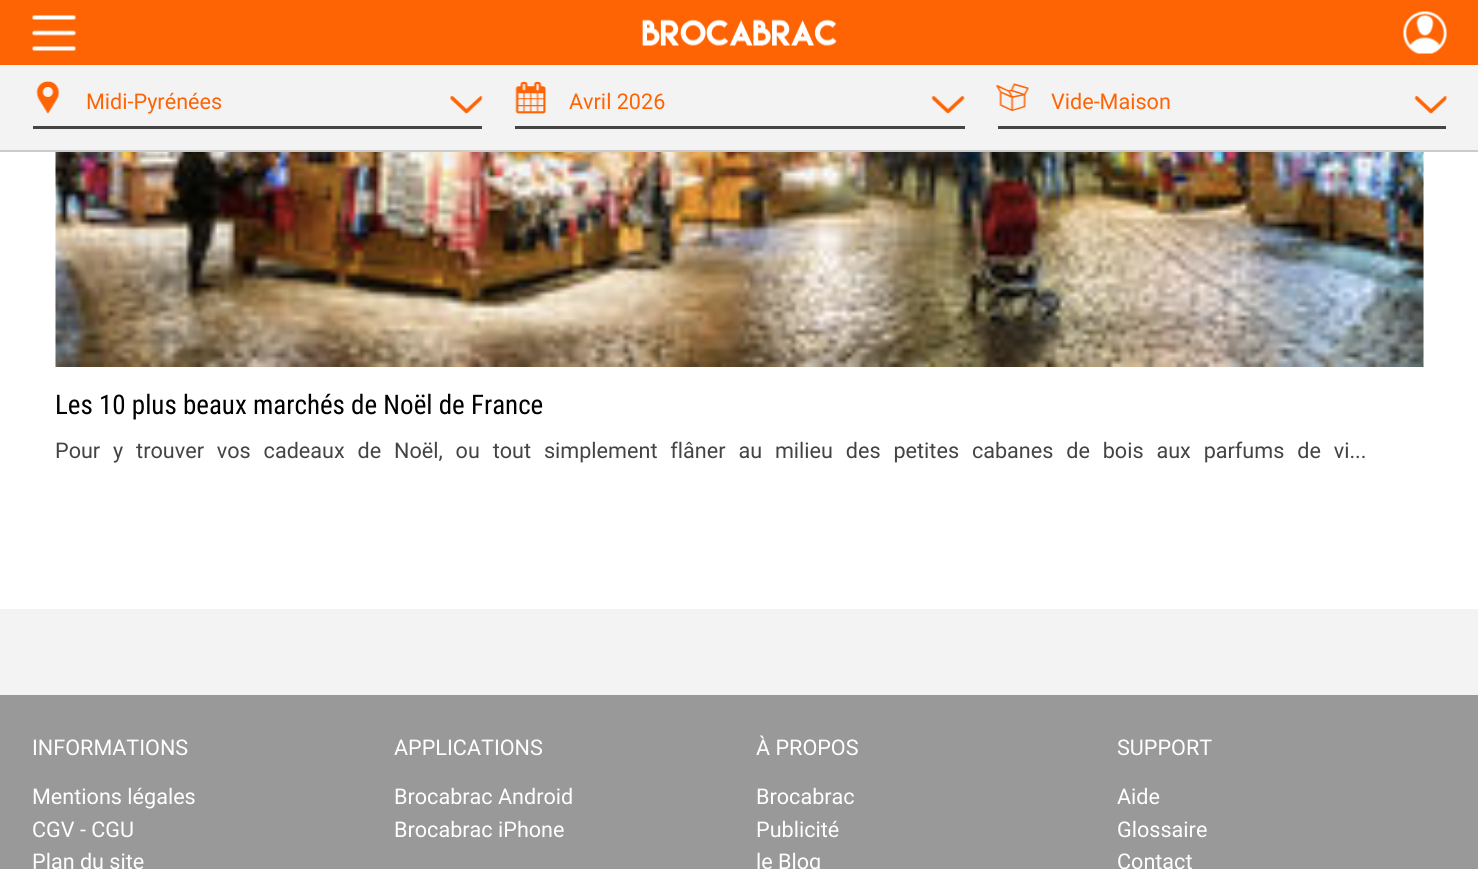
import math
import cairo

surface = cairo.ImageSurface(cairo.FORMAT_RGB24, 1478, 869)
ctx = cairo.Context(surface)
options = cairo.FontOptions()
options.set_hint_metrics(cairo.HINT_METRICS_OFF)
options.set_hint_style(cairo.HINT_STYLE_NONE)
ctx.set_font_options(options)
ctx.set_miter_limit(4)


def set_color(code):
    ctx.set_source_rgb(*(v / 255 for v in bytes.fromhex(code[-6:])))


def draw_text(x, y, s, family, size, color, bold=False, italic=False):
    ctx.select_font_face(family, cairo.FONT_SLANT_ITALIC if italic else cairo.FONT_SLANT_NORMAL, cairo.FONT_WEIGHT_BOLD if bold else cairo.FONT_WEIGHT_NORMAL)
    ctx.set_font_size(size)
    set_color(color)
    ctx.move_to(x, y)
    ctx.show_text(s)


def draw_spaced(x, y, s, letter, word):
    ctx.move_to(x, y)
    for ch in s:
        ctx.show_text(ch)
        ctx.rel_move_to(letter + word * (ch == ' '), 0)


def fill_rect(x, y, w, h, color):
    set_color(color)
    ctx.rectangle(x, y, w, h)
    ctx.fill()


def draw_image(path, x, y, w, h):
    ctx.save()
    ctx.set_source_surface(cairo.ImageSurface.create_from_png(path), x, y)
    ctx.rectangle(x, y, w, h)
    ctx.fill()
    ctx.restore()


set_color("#ffffff")
ctx.paint()
fill_rect(0, 0, 1478, 65, "#ff6404")
draw_image("assets/img1.png", 32, 15, 44, 36)
draw_image("assets/img2.png", 642, 19, 195, 27)
draw_image("assets/img3.png", 1403, 11, 44, 43)
fill_rect(0, 65, 1478, 85, "#f3f3f3")
fill_rect(0, 150, 1478, 2, "#cbcbcb")
fill_rect(33, 126, 449, 3, "#444444")
draw_image("assets/img4.png", 36, 81, 24, 33)
draw_text(86, 109, "Midi-Pyrénées", "Roboto", 21.6, "#ff6404")
draw_image("assets/img5.png", 450, 96, 33, 18)
fill_rect(515, 126, 450, 3, "#444444")
draw_image("assets/img6.png", 515, 81, 31, 33)
draw_text(569, 109, "Avril 2026", "Roboto", 21.6, "#ff6404")
draw_image("assets/img7.png", 931, 96, 34, 18)
fill_rect(998, 126, 448, 3, "#444444")
draw_image("assets/img8.png", 996, 83, 33, 29)
draw_text(1051, 109, "Vide-Maison", "Roboto", 21.6, "#ff6404")
draw_image("assets/img9.png", 1414, 96, 33, 18)
draw_image("assets/img10.png", 55, 152, 1369, 215)
draw_text(55, 414, "Les 10 plus beaux marchés de Noël de France", "Roboto Condensed", 27, "#000000")
ctx.select_font_face("Roboto")
ctx.set_font_size(21.6)
set_color("#444444")
draw_spaced(55, 458, "Pour y trouver vos cadeaux de Noël, ou tout simplement flâner au milieu des petites cabanes de bois aux parfums de vi...", 0, 7.5)
fill_rect(0, 609, 1478, 86, "#f3f3f3")
fill_rect(0, 695, 1478, 174, "#999999")
draw_text(32, 755, "INFORMATIONS", "Roboto", 21.6, "#ffffff")
draw_text(32, 804, "Mentions légales", "Roboto", 21.6, "#ffffff")
draw_text(32, 837, "CGV - CGU", "Roboto", 21.6, "#ffffff")
draw_text(32, 869, "Plan du site", "Roboto", 21.6, "#ffffff")
draw_text(394, 755, "APPLICATIONS", "Roboto", 21.6, "#ffffff")
draw_text(394, 804, "Brocabrac Android", "Roboto", 21.6, "#ffffff")
draw_text(394, 837, "Brocabrac iPhone", "Roboto", 21.6, "#ffffff")
draw_text(756, 755, "À PROPOS", "Roboto", 21.6, "#ffffff")
draw_text(756, 804, "Brocabrac", "Roboto", 21.6, "#ffffff")
draw_text(756, 837, "Publicité", "Roboto", 21.6, "#ffffff")
draw_text(756, 869, "le Blog", "Roboto", 21.6, "#ffffff")
draw_text(1117, 755, "SUPPORT", "Roboto", 21.6, "#ffffff")
draw_text(1117, 804, "Aide", "Roboto", 21.6, "#ffffff")
draw_text(1117, 837, "Glossaire", "Roboto", 21.6, "#ffffff")
draw_text(1117, 869, "Contact", "Roboto", 21.6, "#ffffff")
surface.write_to_png("output.png")
